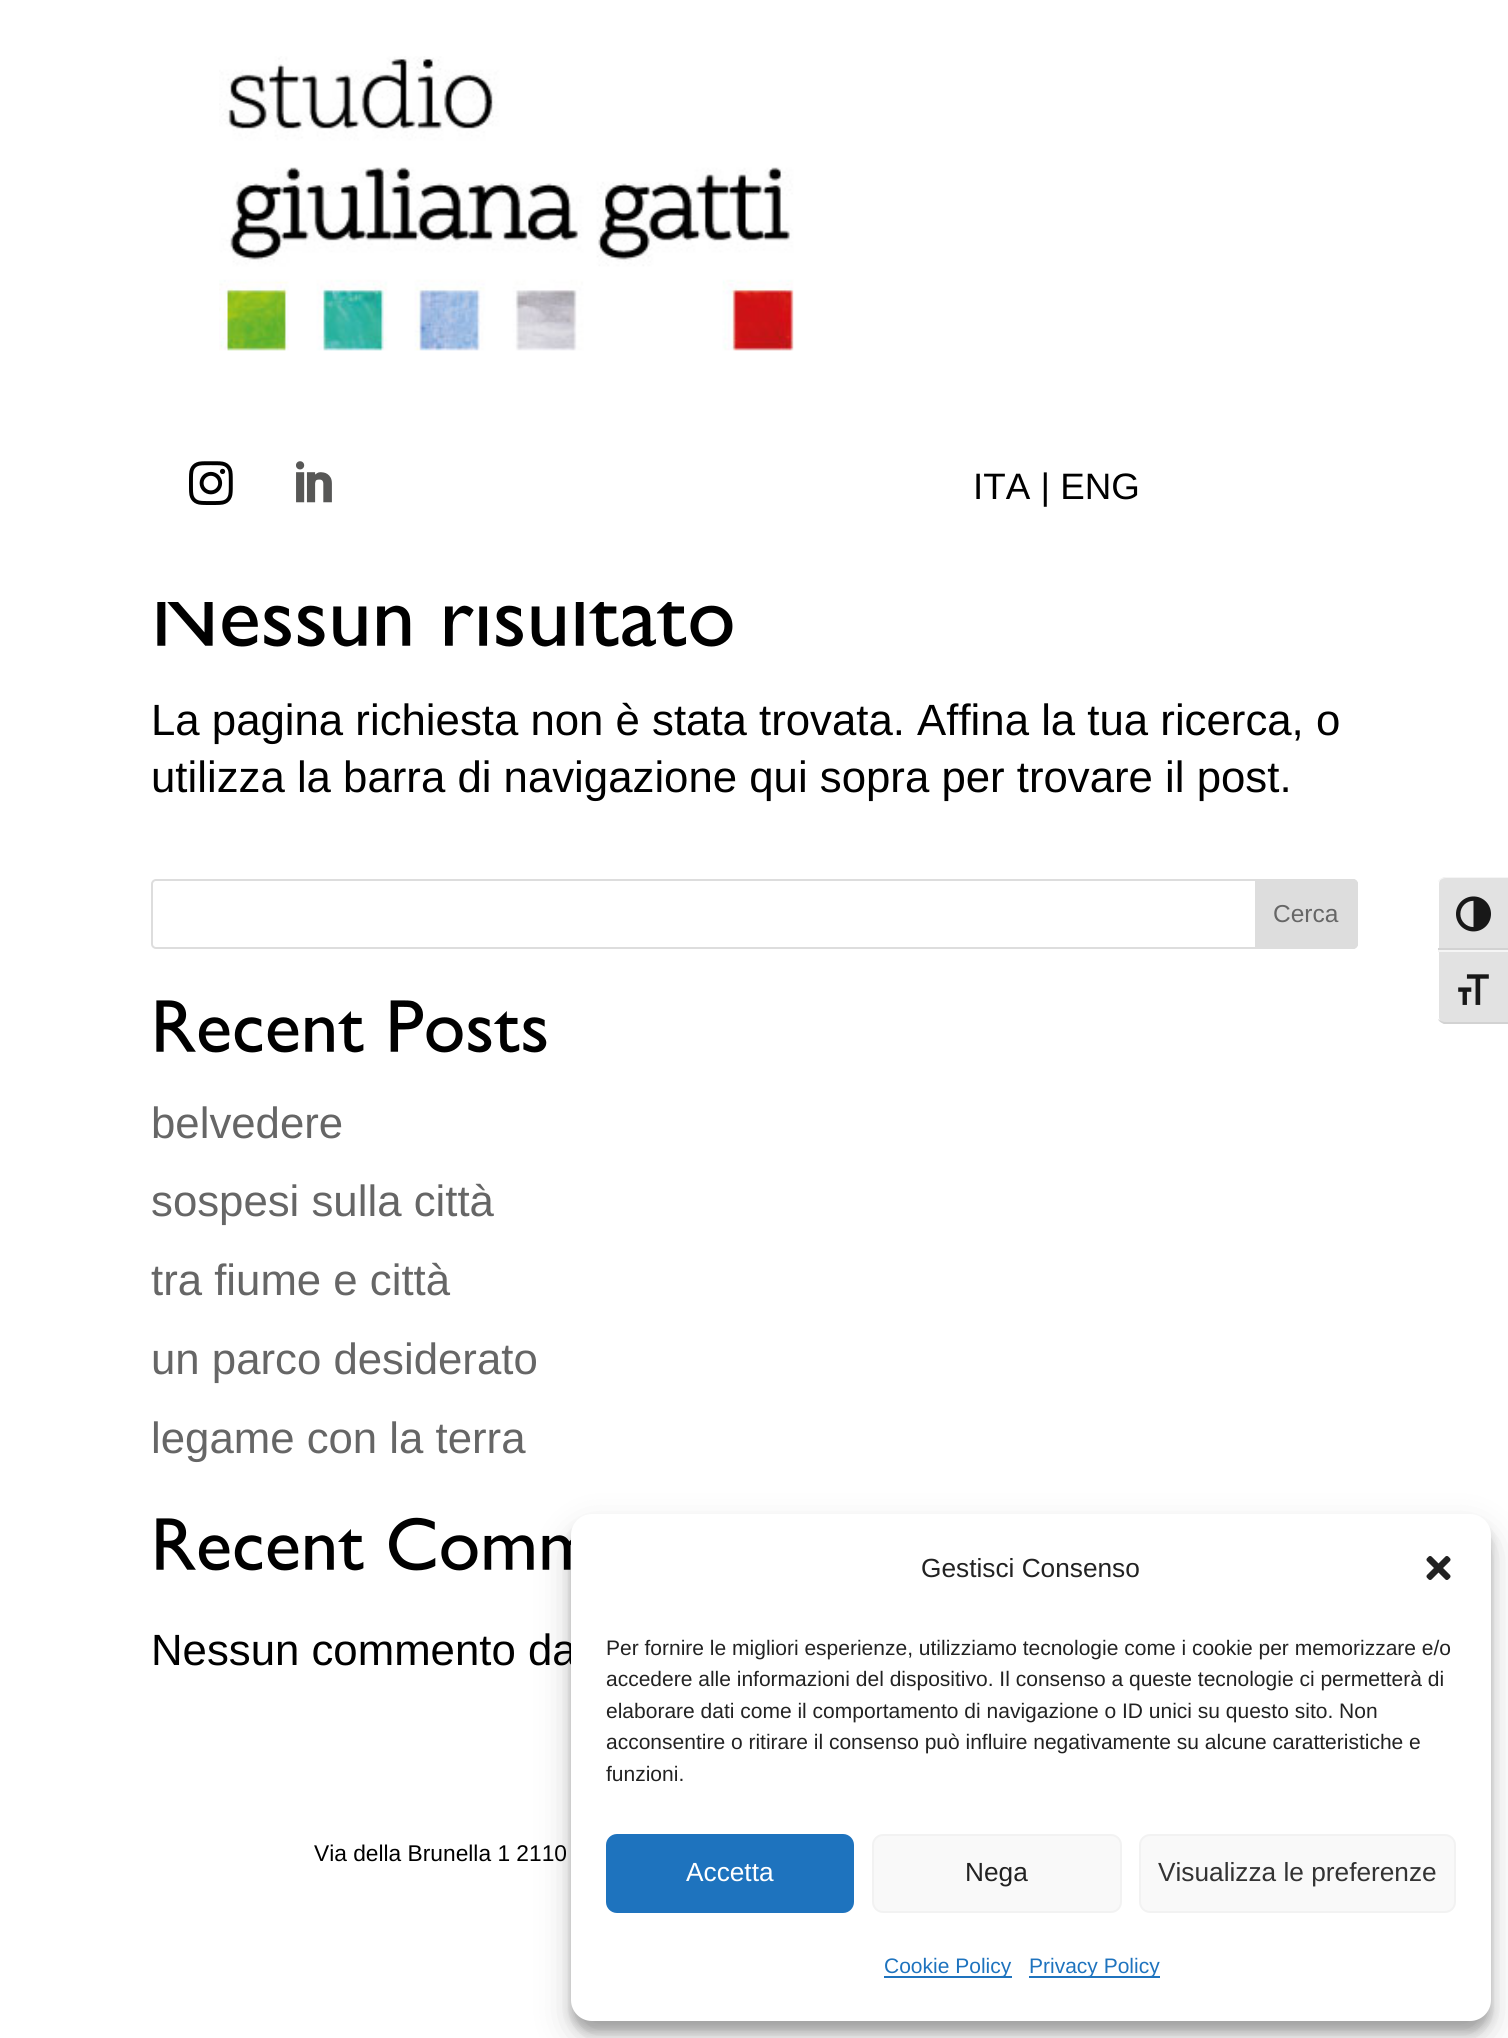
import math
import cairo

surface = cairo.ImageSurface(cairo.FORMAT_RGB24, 1508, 2038)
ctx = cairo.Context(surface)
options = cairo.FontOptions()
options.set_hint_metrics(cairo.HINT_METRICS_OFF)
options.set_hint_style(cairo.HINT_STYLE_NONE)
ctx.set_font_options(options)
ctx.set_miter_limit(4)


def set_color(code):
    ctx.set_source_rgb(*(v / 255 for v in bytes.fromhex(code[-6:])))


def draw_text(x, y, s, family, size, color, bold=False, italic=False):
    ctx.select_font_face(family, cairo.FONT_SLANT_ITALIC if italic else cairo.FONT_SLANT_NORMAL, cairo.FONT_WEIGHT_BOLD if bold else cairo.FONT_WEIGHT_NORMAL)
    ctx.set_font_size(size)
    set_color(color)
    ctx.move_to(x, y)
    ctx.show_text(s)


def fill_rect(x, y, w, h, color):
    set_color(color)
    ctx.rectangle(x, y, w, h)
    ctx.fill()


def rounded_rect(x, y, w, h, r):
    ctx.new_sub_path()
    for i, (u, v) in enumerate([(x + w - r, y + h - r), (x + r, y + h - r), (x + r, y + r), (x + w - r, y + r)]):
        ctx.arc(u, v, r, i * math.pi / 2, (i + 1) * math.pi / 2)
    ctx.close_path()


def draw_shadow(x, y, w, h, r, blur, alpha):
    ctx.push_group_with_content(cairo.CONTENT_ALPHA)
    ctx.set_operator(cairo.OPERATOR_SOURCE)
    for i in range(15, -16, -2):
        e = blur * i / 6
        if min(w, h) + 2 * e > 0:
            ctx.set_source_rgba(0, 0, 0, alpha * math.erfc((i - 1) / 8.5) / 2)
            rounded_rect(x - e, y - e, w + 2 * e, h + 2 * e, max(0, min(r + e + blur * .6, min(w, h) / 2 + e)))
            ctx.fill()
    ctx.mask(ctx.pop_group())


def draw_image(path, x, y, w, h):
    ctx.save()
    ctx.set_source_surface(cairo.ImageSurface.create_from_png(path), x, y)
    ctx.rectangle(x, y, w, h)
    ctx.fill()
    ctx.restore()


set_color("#ffffff")
ctx.paint()
draw_image("assets/img1.png", 219, 56, 575, 295)
draw_image("assets/img2.png", 189, 461, 44, 44)
draw_image("assets/img3.png", 296, 461, 36, 42)
draw_text(973, 499, "ITA | ENG", "Liberation Sans", 36.75, "#000000")
draw_image("assets/img4.png", 157, 602, 576, 45)
draw_text(151, 735, "La pagina richiesta non è stata trovata. Affina la tua ricerca, o", "Liberation Sans", 43.75, "#000000")
draw_text(151, 792, "utilizza la barra di navigazione qui sopra per trovare il post.", "Liberation Sans", 43.75, "#000000")
rounded_rect(152, 880, 1205, 68, 4)
set_color("#dddddd")
ctx.stroke()
ctx.new_path()
ctx.move_to(1256, 880)
ctx.line_to(1353, 880)
ctx.curve_to(1355, 880, 1357, 882, 1357, 884)
ctx.line_to(1357, 944)
ctx.curve_to(1357, 946, 1355, 948, 1353, 948)
ctx.line_to(1256, 948)
ctx.close_path()
ctx.fill_preserve()
ctx.stroke()
draw_text(1273, 922, "Cerca", "Liberation Sans", 24.5, "#666666")
draw_image("assets/img5.png", 156, 1000, 391, 53)
draw_text(151, 1138, "belvedere", "Liberation Sans", 43.75, "#666666")
draw_text(151, 1216, "sospesi sulla città", "Liberation Sans", 43.75, "#666666")
draw_text(151, 1295, "tra fiume e città", "Liberation Sans", 43.75, "#666666")
draw_text(151, 1374, "un parco desiderato", "Liberation Sans", 43.75, "#666666")
draw_text(151, 1453, "legame con la terra", "Liberation Sans", 43.75, "#666666")
draw_image("assets/img6.png", 156, 1517, 415, 54)
draw_text(151, 1665, "Nessun commento da", "Liberation Sans", 43.75, "#000000")
draw_text(314, 1861, "Via della Brunella 1 2110", "Liberation Sans", 22.75, "#000000")
set_color("#e2e2e2")
ctx.new_path()
ctx.move_to(1446, 877)
ctx.line_to(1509, 877)
ctx.line_to(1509, 950)
ctx.line_to(1439, 950)
ctx.line_to(1439, 884)
ctx.curve_to(1439, 880, 1442, 877, 1446, 877)
ctx.close_path()
ctx.fill()
set_color("#f5f5f5")
ctx.new_path()
ctx.move_to(1446, 877)
ctx.line_to(1508, 877)
ctx.line_to(1508, 878)
ctx.line_to(1446, 878)
ctx.curve_to(1443, 878, 1440, 880, 1438, 882)
ctx.curve_to(1438, 879, 1443, 877, 1446, 877)
ctx.close_path()
ctx.fill()
fill_rect(1438, 948, 70, 2, "#d2d2d2")
draw_image("assets/img7.png", 1456, 896, 35, 36)
set_color("#e2e2e2")
ctx.new_path()
ctx.move_to(1439, 950)
ctx.line_to(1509, 950)
ctx.line_to(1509, 1024)
ctx.line_to(1446, 1024)
ctx.curve_to(1442, 1024, 1439, 1021, 1439, 1017)
ctx.close_path()
ctx.fill()
fill_rect(1438, 950, 70, 2, "#f5f5f5")
set_color("#d2d2d2")
ctx.new_path()
ctx.move_to(1508, 1024)
ctx.line_to(1508, 1022)
ctx.line_to(1446, 1022)
ctx.curve_to(1443, 1022, 1440, 1021, 1438, 1019)
ctx.curve_to(1439, 1022, 1442, 1023, 1444, 1024)
ctx.close_path()
ctx.fill()
draw_image("assets/img8.png", 1458, 974, 31, 31)
set_color("#000000")
draw_shadow(571, 1524, 920, 508, 21, 5, 0.23)
draw_shadow(571, 1531, 920, 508, 21, 17.5, 0.19)
set_color("#ffffff")
rounded_rect(571, 1514, 920, 507, 21)
ctx.fill()
draw_text(921, 1577, "Gestisci Consenso", "Liberation Sans", 26.25, "#222222")
draw_image("assets/img9.png", 1426, 1556, 25, 24)
draw_text(606, 1655, "Per fornire le migliori esperienze, utilizziamo tecnologie come i cookie per memorizzare e/o", "Liberation Sans", 21, "#222222")
draw_text(606, 1686, "accedere alle informazioni del dispositivo. Il consenso a queste tecnologie ci permetterà di", "Liberation Sans", 21, "#222222")
draw_text(606, 1718, "elaborare dati come il comportamento di navigazione o ID unici su questo sito. Non", "Liberation Sans", 21, "#222222")
draw_text(606, 1749, "acconsentire o ritirare il consenso può influire negativamente su alcune caratteristiche e", "Liberation Sans", 21, "#222222")
draw_text(606, 1781, "funzioni.", "Liberation Sans", 21, "#222222")
set_color("#1e73be")
rounded_rect(607, 1835, 246, 77, 10)
ctx.fill_preserve()
ctx.stroke()
draw_text(686, 1881, "Accetta", "Liberation Sans", 26.25, "#ffffff")
set_color("#f9f9f9")
rounded_rect(873, 1835, 248, 77, 10)
ctx.fill_preserve()
set_color("#f2f2f2")
ctx.stroke()
draw_text(965, 1881, "Nega", "Liberation Sans", 26.25, "#222222")
set_color("#f9f9f9")
rounded_rect(1140, 1835, 315, 77, 10)
ctx.fill_preserve()
set_color("#f2f2f2")
ctx.stroke()
draw_text(1158, 1881, "Visualizza le preferenze", "Liberation Sans", 26.25, "#333333")
fill_rect(884, 1976, 128, 2, "#1e73be")
draw_text(884, 1973, "Cookie Policy", "Liberation Sans", 21, "#1e73be")
fill_rect(1029, 1976, 131, 2, "#1e73be")
draw_text(1029, 1973, "Privacy Policy", "Liberation Sans", 21, "#1e73be")
surface.write_to_png("output.png")
